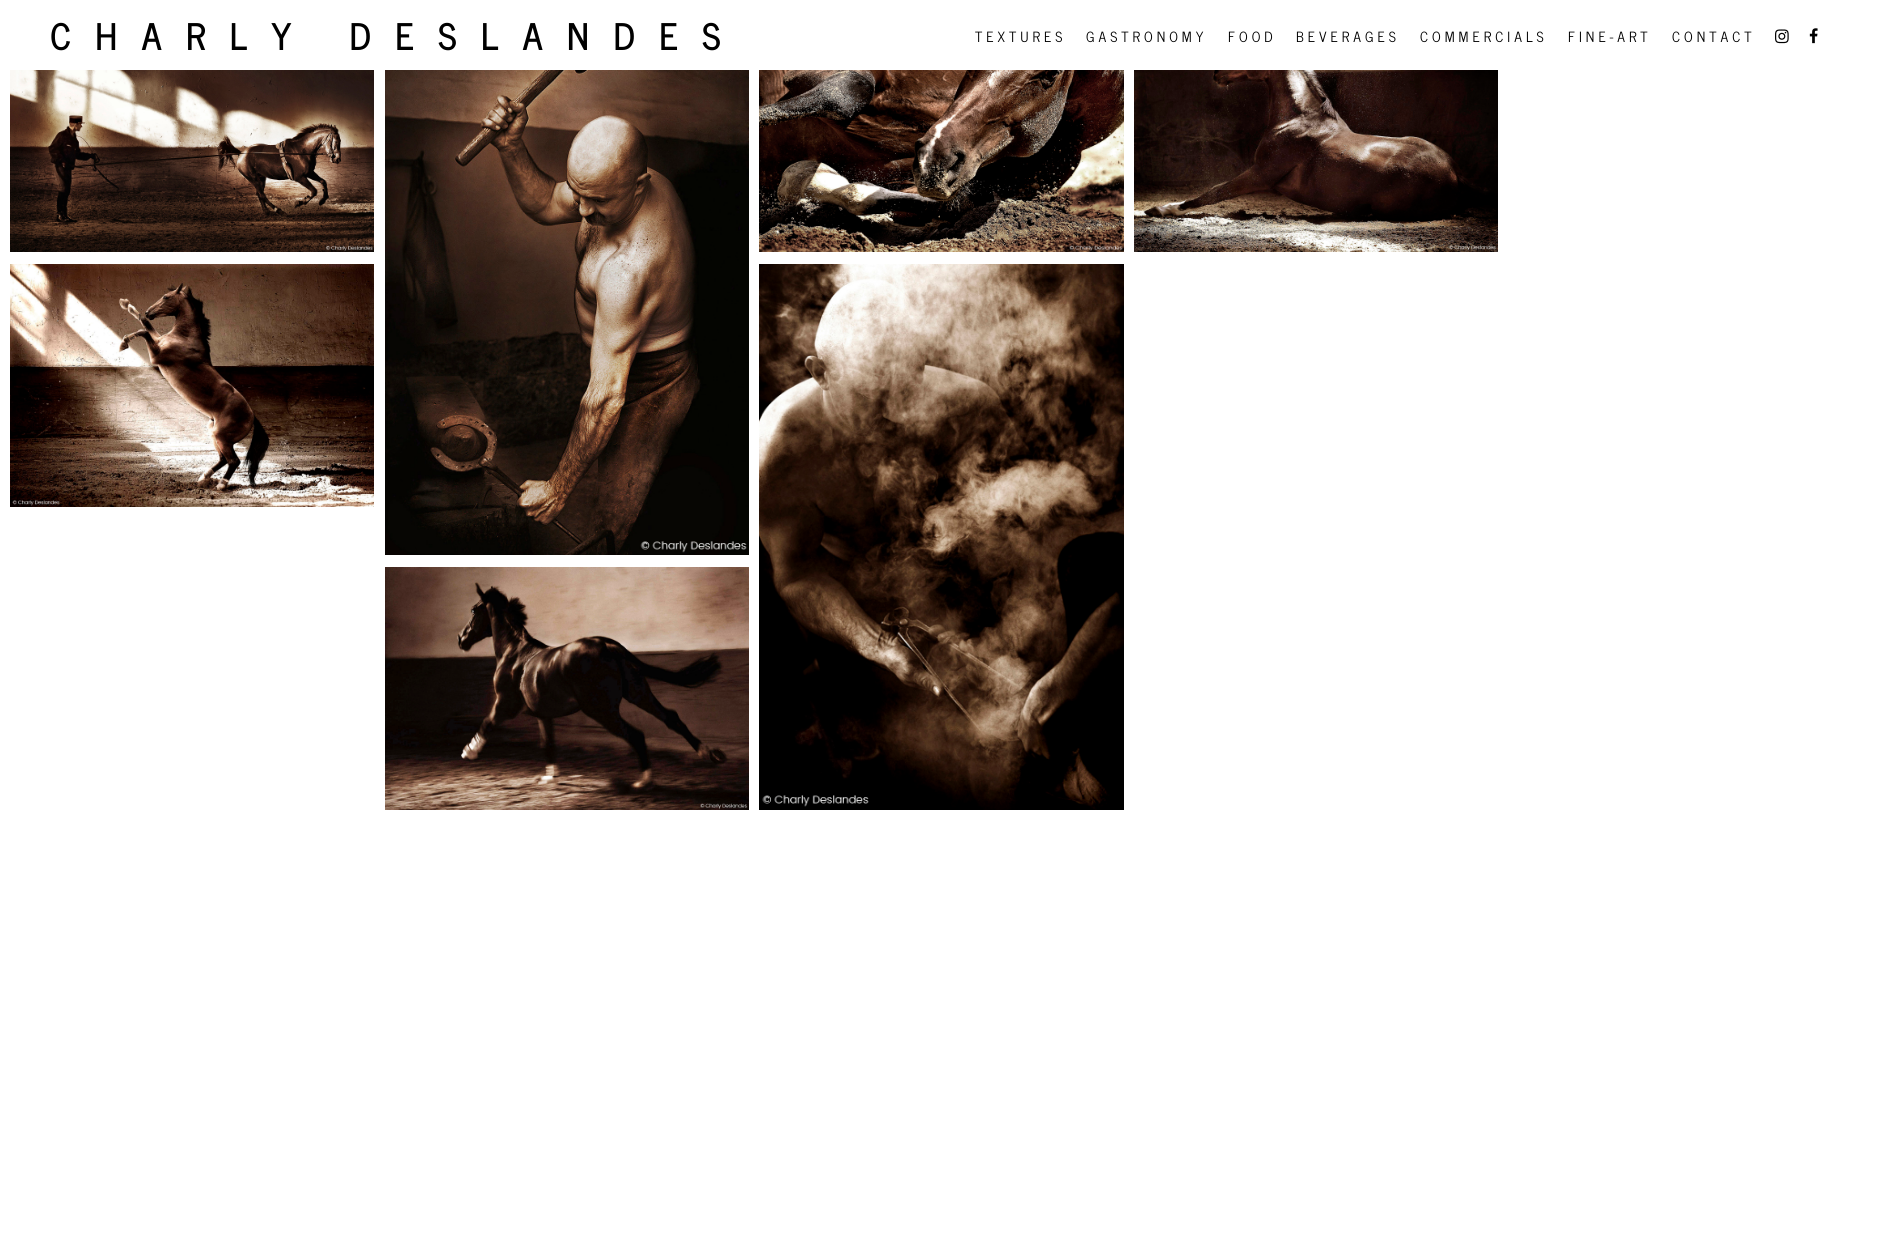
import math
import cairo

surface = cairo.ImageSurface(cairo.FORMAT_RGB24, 1883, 1257)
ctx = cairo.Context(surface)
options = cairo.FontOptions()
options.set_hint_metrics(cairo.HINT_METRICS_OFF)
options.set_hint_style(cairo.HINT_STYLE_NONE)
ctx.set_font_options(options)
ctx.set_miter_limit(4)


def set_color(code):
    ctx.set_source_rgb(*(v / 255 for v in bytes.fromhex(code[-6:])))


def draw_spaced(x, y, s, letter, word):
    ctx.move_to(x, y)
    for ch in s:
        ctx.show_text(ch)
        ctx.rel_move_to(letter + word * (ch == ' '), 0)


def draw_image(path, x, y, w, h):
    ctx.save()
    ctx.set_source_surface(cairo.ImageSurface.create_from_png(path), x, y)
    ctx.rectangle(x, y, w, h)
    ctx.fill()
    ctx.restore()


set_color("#ffffff")
ctx.paint()
ctx.select_font_face("News Cycle", cairo.FONT_SLANT_NORMAL, cairo.FONT_WEIGHT_BOLD)
ctx.set_font_size(35)
set_color("#000000")
draw_spaced(50, 50, "CHARLY DESLANDES", 25, 0)
ctx.select_font_face("News Cycle")
ctx.set_font_size(14)
draw_spaced(975, 42, "TEXTURES", 4, 0)
draw_spaced(1086, 42, "GASTRONOMY", 4, 0)
draw_spaced(1228, 42, "FOOD", 4, 0)
draw_spaced(1296, 42, "BEVERAGES", 4, 0)
draw_spaced(1420, 42, "COMMERCIALS", 4, 0)
draw_spaced(1568, 42, "FINE-ART", 4, 0)
draw_spaced(1672, 42, "CONTACT", 4, 0)
draw_image("assets/img1.png", 1775, 29, 14, 15)
draw_image("assets/img2.png", 1809, 28, 9, 16)
draw_image("assets/img3.png", 10, 70, 364, 182)
draw_image("assets/img4.png", 385, 70, 364, 485)
draw_image("assets/img5.png", 759, 70, 365, 182)
draw_image("assets/img6.png", 1134, 70, 364, 182)
draw_image("assets/img7.png", 10, 264, 364, 243)
draw_image("assets/img8.png", 385, 567, 364, 243)
draw_image("assets/img9.png", 759, 264, 365, 546)
surface.write_to_png("output.png")
